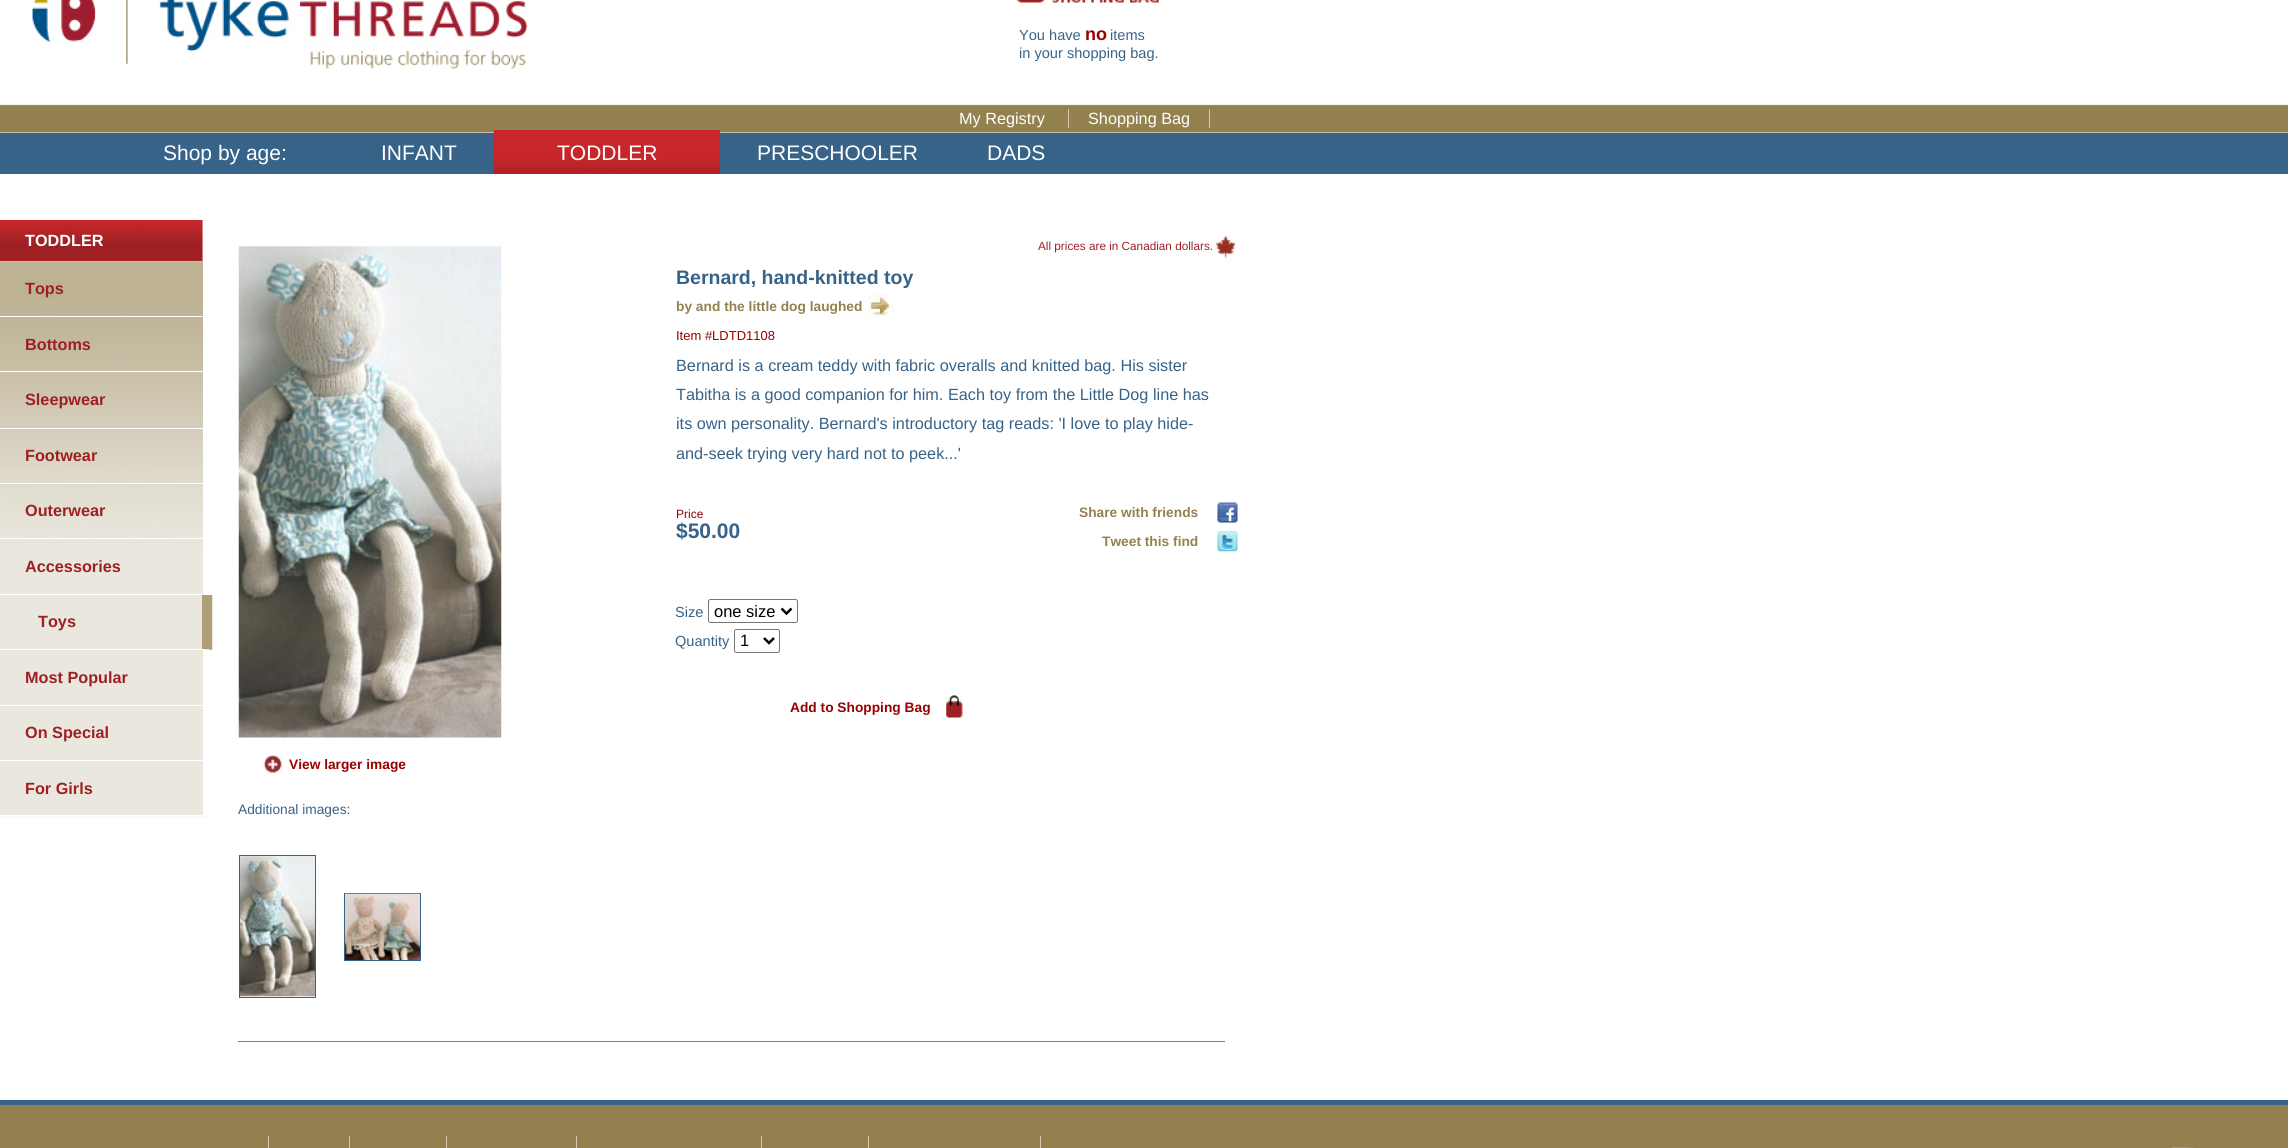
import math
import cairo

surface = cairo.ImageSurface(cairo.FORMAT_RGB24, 2288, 1148)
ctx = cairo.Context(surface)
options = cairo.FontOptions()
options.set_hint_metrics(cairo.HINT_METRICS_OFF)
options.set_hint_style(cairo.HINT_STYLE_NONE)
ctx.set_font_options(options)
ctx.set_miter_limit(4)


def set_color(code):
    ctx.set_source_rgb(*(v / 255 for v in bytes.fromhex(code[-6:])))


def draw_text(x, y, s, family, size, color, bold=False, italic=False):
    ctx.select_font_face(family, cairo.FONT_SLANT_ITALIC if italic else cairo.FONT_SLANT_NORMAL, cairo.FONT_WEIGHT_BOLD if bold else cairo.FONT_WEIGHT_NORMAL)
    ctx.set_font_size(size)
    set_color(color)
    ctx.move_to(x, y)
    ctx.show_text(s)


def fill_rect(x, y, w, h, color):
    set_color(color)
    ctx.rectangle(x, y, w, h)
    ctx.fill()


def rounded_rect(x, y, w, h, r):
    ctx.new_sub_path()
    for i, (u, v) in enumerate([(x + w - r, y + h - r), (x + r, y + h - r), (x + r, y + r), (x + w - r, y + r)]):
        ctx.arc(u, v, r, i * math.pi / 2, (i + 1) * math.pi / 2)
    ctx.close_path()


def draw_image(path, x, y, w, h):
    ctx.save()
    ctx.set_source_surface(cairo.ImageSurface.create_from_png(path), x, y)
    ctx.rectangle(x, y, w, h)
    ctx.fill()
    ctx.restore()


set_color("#ffffff")
ctx.paint()
draw_image("assets/img1.png", 0, 104, 2288, 29)
draw_image("assets/img2.png", 32, 0, 496, 69)
draw_image("assets/img3.png", 1016, 0, 143, 3)
draw_text(1019, 40, "You have", "Liberation Sans", 14.6, "#376388")
draw_text(1085, 40, "no", "Liberation Sans", 18, "#990000", bold=True)
draw_text(1110, 40, "items", "Liberation Sans", 14.6, "#376388")
draw_text(1019, 58, "in your shopping bag.", "Liberation Sans", 14.6, "#376388")
draw_text(959, 124, "My Registry", "Liberation Sans", 16.25, "#ffffff")
fill_rect(1068, 109, 1, 19, "#d4c9a9")
draw_text(1088, 124, "Shopping Bag", "Liberation Sans", 16.25, "#ffffff")
fill_rect(1209, 109, 1, 19, "#d4c9a9")
fill_rect(0, 133, 2288, 41, "#376388")
draw_text(163, 160, "Shop by age:", "Liberation Sans", 21, "#ffffff")
draw_text(381, 160, "INFANT", "Liberation Sans", 21, "#ffffff")
draw_image("assets/img4.png", 493, 130, 227, 44)
draw_text(557, 160, "TODDLER", "Liberation Sans", 21, "#ffffff")
draw_text(757, 160, "PRESCHOOLER", "Liberation Sans", 21, "#ffffff")
draw_text(987, 160, "DADS", "Liberation Sans", 21, "#ffffff")
fill_rect(202, 220, 1, 41, "#eae7de")
draw_image("assets/img5.png", 0, 220, 203, 41)
draw_text(25, 246, "TODDLER", "Liberation Sans", 16.25, "#ffffff", bold=True)
fill_rect(0, 261, 213, 389, "#eae7de")
draw_image("assets/img6.png", 0, 261, 213, 556)
fill_rect(203, 261, 10, 167, "#ffffff")
fill_rect(0, 316, 203, 1, "#ffffff")
draw_text(25, 294, "Tops", "Liberation Sans", 16.25, "#9e2023", bold=True)
fill_rect(0, 371, 203, 1, "#ffffff")
draw_text(25, 350, "Bottoms", "Liberation Sans", 16.25, "#9e2023", bold=True)
fill_rect(0, 428, 213, 1, "#ffffff")
draw_text(25, 405, "Sleepwear", "Liberation Sans", 16.25, "#9e2023", bold=True)
fill_rect(203, 429, 10, 54, "#ffffff")
fill_rect(0, 483, 213, 1, "#ffffff")
draw_text(25, 461, "Footwear", "Liberation Sans", 16.25, "#9e2023", bold=True)
fill_rect(203, 484, 10, 54, "#ffffff")
fill_rect(0, 538, 213, 1, "#ffffff")
draw_text(25, 516, "Outerwear", "Liberation Sans", 16.25, "#9e2023", bold=True)
fill_rect(203, 539, 10, 55, "#ffffff")
fill_rect(0, 594, 213, 1, "#ffffff")
draw_text(25, 572, "Accessories", "Liberation Sans", 16.25, "#9e2023", bold=True)
set_color("#ae9f75")
ctx.new_path()
ctx.move_to(212, 595)
ctx.line_to(212, 650)
ctx.line_to(202, 649)
ctx.line_to(202, 595)
ctx.close_path()
ctx.fill()
set_color("#ffffff")
ctx.new_path()
ctx.move_to(212, 650)
ctx.line_to(0, 650)
ctx.line_to(0, 649)
ctx.line_to(202, 649)
ctx.close_path()
ctx.fill()
draw_text(38, 627, "Toys", "Liberation Sans", 16.25, "#9e2023", bold=True)
fill_rect(203, 650, 10, 55, "#ffffff")
fill_rect(0, 705, 213, 1, "#ffffff")
draw_text(25, 683, "Most Popular", "Liberation Sans", 16.25, "#9e2023", bold=True)
fill_rect(203, 706, 10, 54, "#ffffff")
fill_rect(0, 760, 213, 1, "#ffffff")
draw_text(25, 738, "On Special", "Liberation Sans", 16.25, "#9e2023", bold=True)
fill_rect(203, 761, 10, 54, "#ffffff")
fill_rect(0, 815, 213, 1, "#ffffff")
draw_text(25, 794, "For Girls", "Liberation Sans", 16.25, "#9e2023", bold=True)
draw_image("assets/img7.png", 1216, 236, 20, 23)
draw_text(1038, 250, "All prices are in Canadian dollars.", "Liberation Sans", 11.75, "#9e2023")
draw_text(676, 284, "Bernard, hand-knitted toy", "Liberation Sans", 19.5, "#376388", bold=True)
draw_text(676, 311, "by and the little dog laughed", "Liberation Sans", 13.75, "#93814f", bold=True)
draw_image("assets/img8.png", 867, 293, 28, 26)
draw_text(676, 340, "Item #LDTD1108", "Liberation Sans", 13, "#990000")
draw_text(676, 371, "Bernard is a cream teddy with fabric overalls and knitted bag. His sister", "Liberation Sans", 16.25, "#376388")
draw_text(676, 400, "Tabitha is a good companion for him. Each toy from the Little Dog line has", "Liberation Sans", 16.25, "#376388")
draw_text(676, 429, "its own personality. Bernard's introductory tag reads: 'I love to play hide-", "Liberation Sans", 16.25, "#376388")
draw_text(676, 459, "and-seek trying very hard not to peek...'", "Liberation Sans", 16.25, "#376388")
draw_text(676, 518, "Price", "Liberation Sans", 12, "#990000")
draw_text(676, 538, "$50.00", "Liberation Sans", 21, "#376388", bold=True)
draw_text(675, 617, "Size", "Liberation Sans", 14.6, "#376388")
rounded_rect(708.5, 599.5, 89, 23, 2)
set_color("#767676")
ctx.set_line_width(1)
ctx.stroke()
ctx.new_path()
ctx.move_to(781.5, 608.5)
ctx.line_to(786.5, 613.5)
ctx.line_to(791.5, 608.5)
set_color("#000000")
ctx.set_line_width(2.5)
ctx.stroke()
draw_text(714, 617, "one size", "Liberation Sans", 16.5, "#000000")
draw_text(675, 646, "Quantity", "Liberation Sans", 14.6, "#376388")
rounded_rect(734.5, 629.5, 45, 23, 2)
set_color("#767676")
ctx.set_line_width(1)
ctx.stroke()
ctx.new_path()
ctx.move_to(764, 638)
ctx.line_to(769, 643)
ctx.line_to(774, 638)
set_color("#000000")
ctx.set_line_width(2.5)
ctx.stroke()
draw_text(740, 646, "1", "Liberation Sans", 16.5, "#000000")
draw_text(790, 712, "Add to Shopping Bag", "Liberation Sans", 13.75, "#990000", bold=True)
draw_image("assets/img9.png", 946, 695, 17, 23)
draw_text(1079, 517, "Share with friends", "Liberation Sans", 13.75, "#93814f", bold=True)
draw_image("assets/img10.png", 1217, 502, 21, 21)
draw_text(1102, 546, "Tweet this find", "Liberation Sans", 13.75, "#93814f", bold=True)
draw_image("assets/img11.png", 1217, 531, 21, 21)
draw_image("assets/img12.png", 238, 246, 264, 492)
draw_image("assets/img13.png", 263, 755, 20, 19)
draw_text(289, 769, "View larger image", "Liberation Sans", 13.75, "#990000", bold=True)
draw_text(238, 814, "Additional images:", "Liberation Sans", 13.75, "#376388")
ctx.rectangle(239.5, 855.5, 76, 142)
ctx.set_line_width(1)
ctx.stroke()
draw_image("assets/img14.png", 240, 856, 75, 141)
ctx.rectangle(344.5, 893.5, 76, 67)
ctx.stroke()
draw_image("assets/img15.png", 345, 893, 75, 67)
fill_rect(238, 1041, 987, 1, "#93814f")
fill_rect(0, 1105, 2288, 43, "#92804e")
draw_image("assets/img16.png", 2171, 1147, 23, 1)
fill_rect(0, 1100, 2288, 5, "#376388")
fill_rect(268, 1136, 1, 12, "#d4c9a9")
fill_rect(349, 1136, 1, 12, "#d4c9a9")
fill_rect(446, 1136, 1, 12, "#d4c9a9")
fill_rect(576, 1136, 1, 12, "#d4c9a9")
fill_rect(761, 1136, 1, 12, "#d4c9a9")
fill_rect(868, 1136, 1, 12, "#d4c9a9")
fill_rect(1040, 1136, 1, 12, "#d4c9a9")
surface.write_to_png("output.png")
